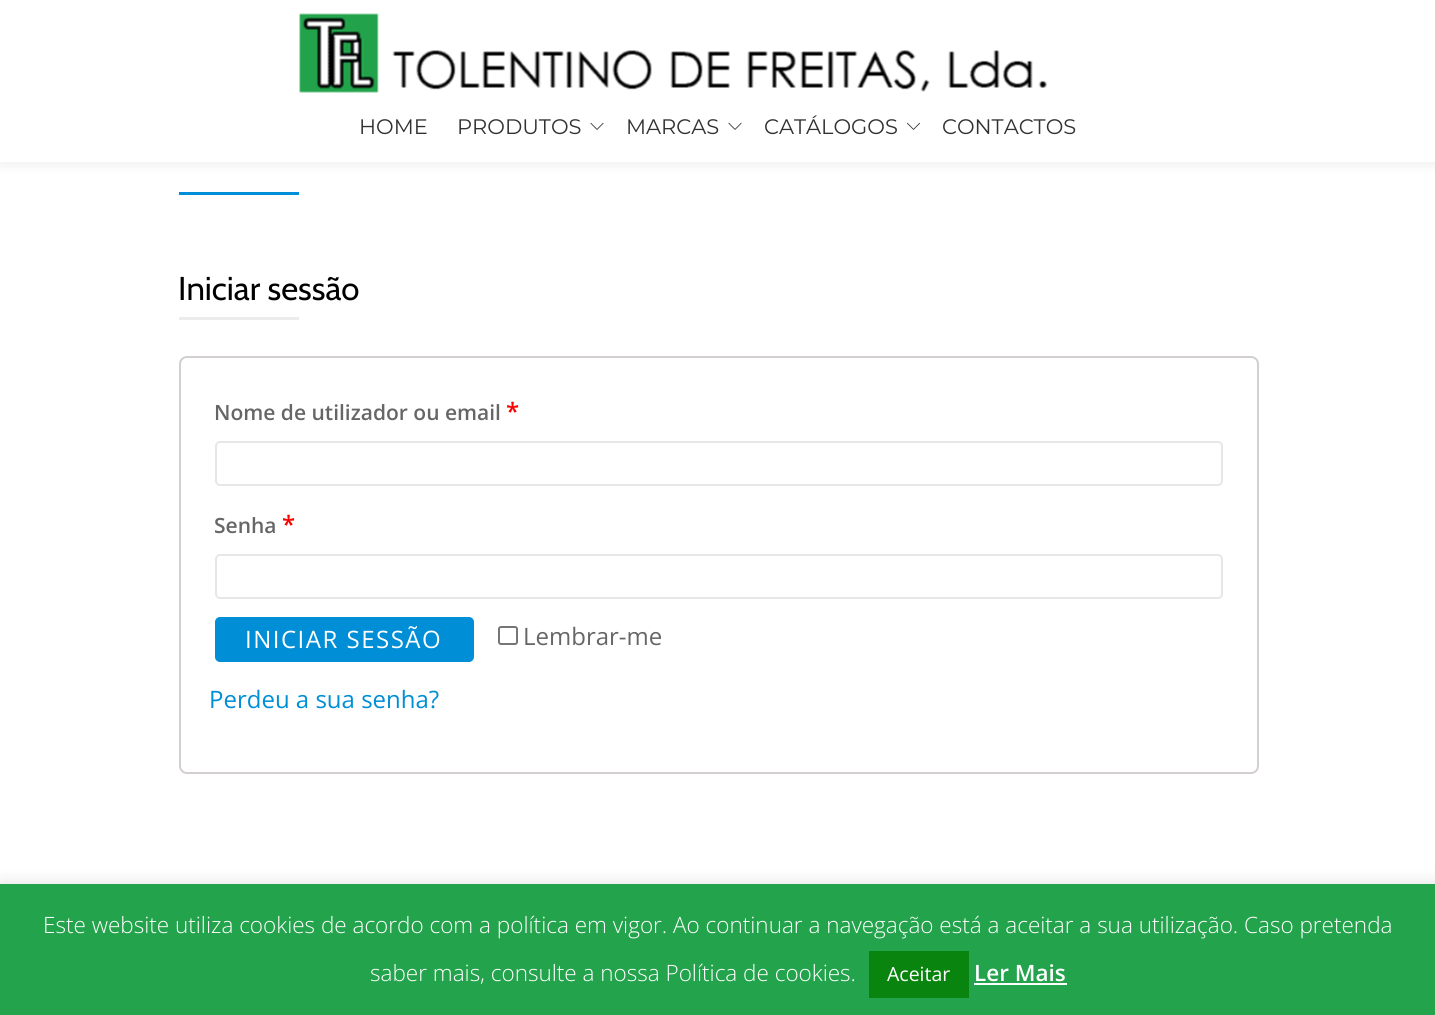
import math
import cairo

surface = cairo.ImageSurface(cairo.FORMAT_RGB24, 1435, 1015)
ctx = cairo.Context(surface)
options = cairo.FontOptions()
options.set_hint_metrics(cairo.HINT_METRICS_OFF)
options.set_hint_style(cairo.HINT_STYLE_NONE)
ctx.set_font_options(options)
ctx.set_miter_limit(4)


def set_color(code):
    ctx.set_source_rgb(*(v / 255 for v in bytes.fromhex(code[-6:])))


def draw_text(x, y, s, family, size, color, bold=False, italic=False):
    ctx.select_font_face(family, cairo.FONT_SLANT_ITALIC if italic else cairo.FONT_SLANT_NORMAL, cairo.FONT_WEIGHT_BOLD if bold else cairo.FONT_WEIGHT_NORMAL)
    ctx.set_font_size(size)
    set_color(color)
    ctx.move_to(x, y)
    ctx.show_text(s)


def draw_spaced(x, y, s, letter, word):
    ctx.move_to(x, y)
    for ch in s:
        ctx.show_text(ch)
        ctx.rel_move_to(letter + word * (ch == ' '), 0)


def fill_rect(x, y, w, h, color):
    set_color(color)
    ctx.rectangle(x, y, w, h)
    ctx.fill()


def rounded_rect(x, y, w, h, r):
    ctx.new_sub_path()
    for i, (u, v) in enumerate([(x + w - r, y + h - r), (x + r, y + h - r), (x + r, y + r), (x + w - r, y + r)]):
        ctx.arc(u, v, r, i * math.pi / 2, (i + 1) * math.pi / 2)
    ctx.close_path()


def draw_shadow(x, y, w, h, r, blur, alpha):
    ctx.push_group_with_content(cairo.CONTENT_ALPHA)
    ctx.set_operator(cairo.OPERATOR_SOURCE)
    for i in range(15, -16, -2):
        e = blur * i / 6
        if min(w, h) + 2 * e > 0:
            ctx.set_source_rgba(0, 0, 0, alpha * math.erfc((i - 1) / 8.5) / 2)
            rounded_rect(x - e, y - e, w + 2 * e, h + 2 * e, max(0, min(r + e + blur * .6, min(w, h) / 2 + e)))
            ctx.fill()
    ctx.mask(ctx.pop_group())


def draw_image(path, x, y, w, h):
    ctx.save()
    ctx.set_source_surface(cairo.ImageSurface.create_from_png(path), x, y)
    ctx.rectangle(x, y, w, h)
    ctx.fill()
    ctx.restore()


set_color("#ffffff")
ctx.paint()
set_color("#323232")
draw_shadow(0, 3, 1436, 162, 0, 6, 0.08)
fill_rect(0, 0, 1435, 162, "#ffffff")
draw_image("assets/img1.png", 299, 13, 748, 80)
draw_text(359, 134, "HOME", "Montserrat", 21, "#313131")
draw_text(457, 134, "PRODUTOS", "Montserrat", 21, "#313131")
draw_image("assets/img2.png", 590, 122, 14, 8)
draw_text(626, 134, "MARCAS", "Montserrat", 21, "#313131")
draw_image("assets/img2.png", 728, 122, 14, 8)
draw_text(764, 134, "CATÁLOGOS", "Montserrat", 21, "#313131")
draw_image("assets/img3.png", 906, 122, 15, 8)
draw_text(942, 134, "CONTACTOS", "Montserrat", 21, "#313131")
fill_rect(179, 192, 120, 3, "#008ed6")
draw_text(178, 300, "Iniciar sessão", "Cabin", 33, "#000000")
fill_rect(179, 317, 120, 3, "#ececec")
rounded_rect(180, 357, 1078, 416, 7)
set_color("#d3ced2")
ctx.stroke()
draw_text(214, 420, "Nome de utilizador ou email", "Open Sans SemiBold", 21, "#666666")
draw_text(506, 420, "*", "Open Sans SemiBold", 24, "#ff0000")
rounded_rect(216, 442, 1006, 43, 4)
set_color("#e7e7e7")
ctx.stroke()
draw_text(214, 533, "Senha", "Open Sans SemiBold", 21, "#666666")
draw_text(282, 533, "*", "Open Sans SemiBold", 24, "#ff0000")
rounded_rect(216, 555, 1006, 43, 4)
set_color("#e7e7e7")
ctx.stroke()
set_color("#008ed6")
rounded_rect(216, 618, 257, 43, 4)
ctx.fill_preserve()
ctx.stroke()
ctx.select_font_face("Open Sans")
set_color("#ffffff")
draw_spaced(245, 648, "INICIAR SESSÃO", 1.5, 0)
rounded_rect(499, 627, 18, 17, 2)
set_color("#767676")
ctx.stroke()
draw_text(523, 645, "Lembrar-me", "Open Sans", 24, "#666666")
draw_text(209, 708, "Perdeu a sua senha?", "Open Sans", 24, "#008ed6")
set_color("#acabab")
draw_shadow(0, 882, 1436, 132, 0, 7.5, 0.3)
fill_rect(0, 884, 1435, 131, "#23a34c")
draw_text(43, 933, "Este website utiliza cookies de acordo com a política em vigor. Ao continuar a navegação está a aceitar a sua utilização. Caso pretenda", "Open Sans Light", 22.5, "#ffffff")
draw_text(370, 981, "saber mais, consulte a nossa Política de cookies.", "Open Sans Light", 22.5, "#ffffff")
fill_rect(869, 951, 100, 47, "#09840f")
draw_text(887, 981, "Aceitar", "Open Sans", 19.5, "#ffffff")
draw_text(974, 981, "Ler Mais", "Open Sans SemiBold", 22.5, "#ffffff")
fill_rect(974, 983, 93, 2, "#ffffff")
surface.write_to_png("output.png")
